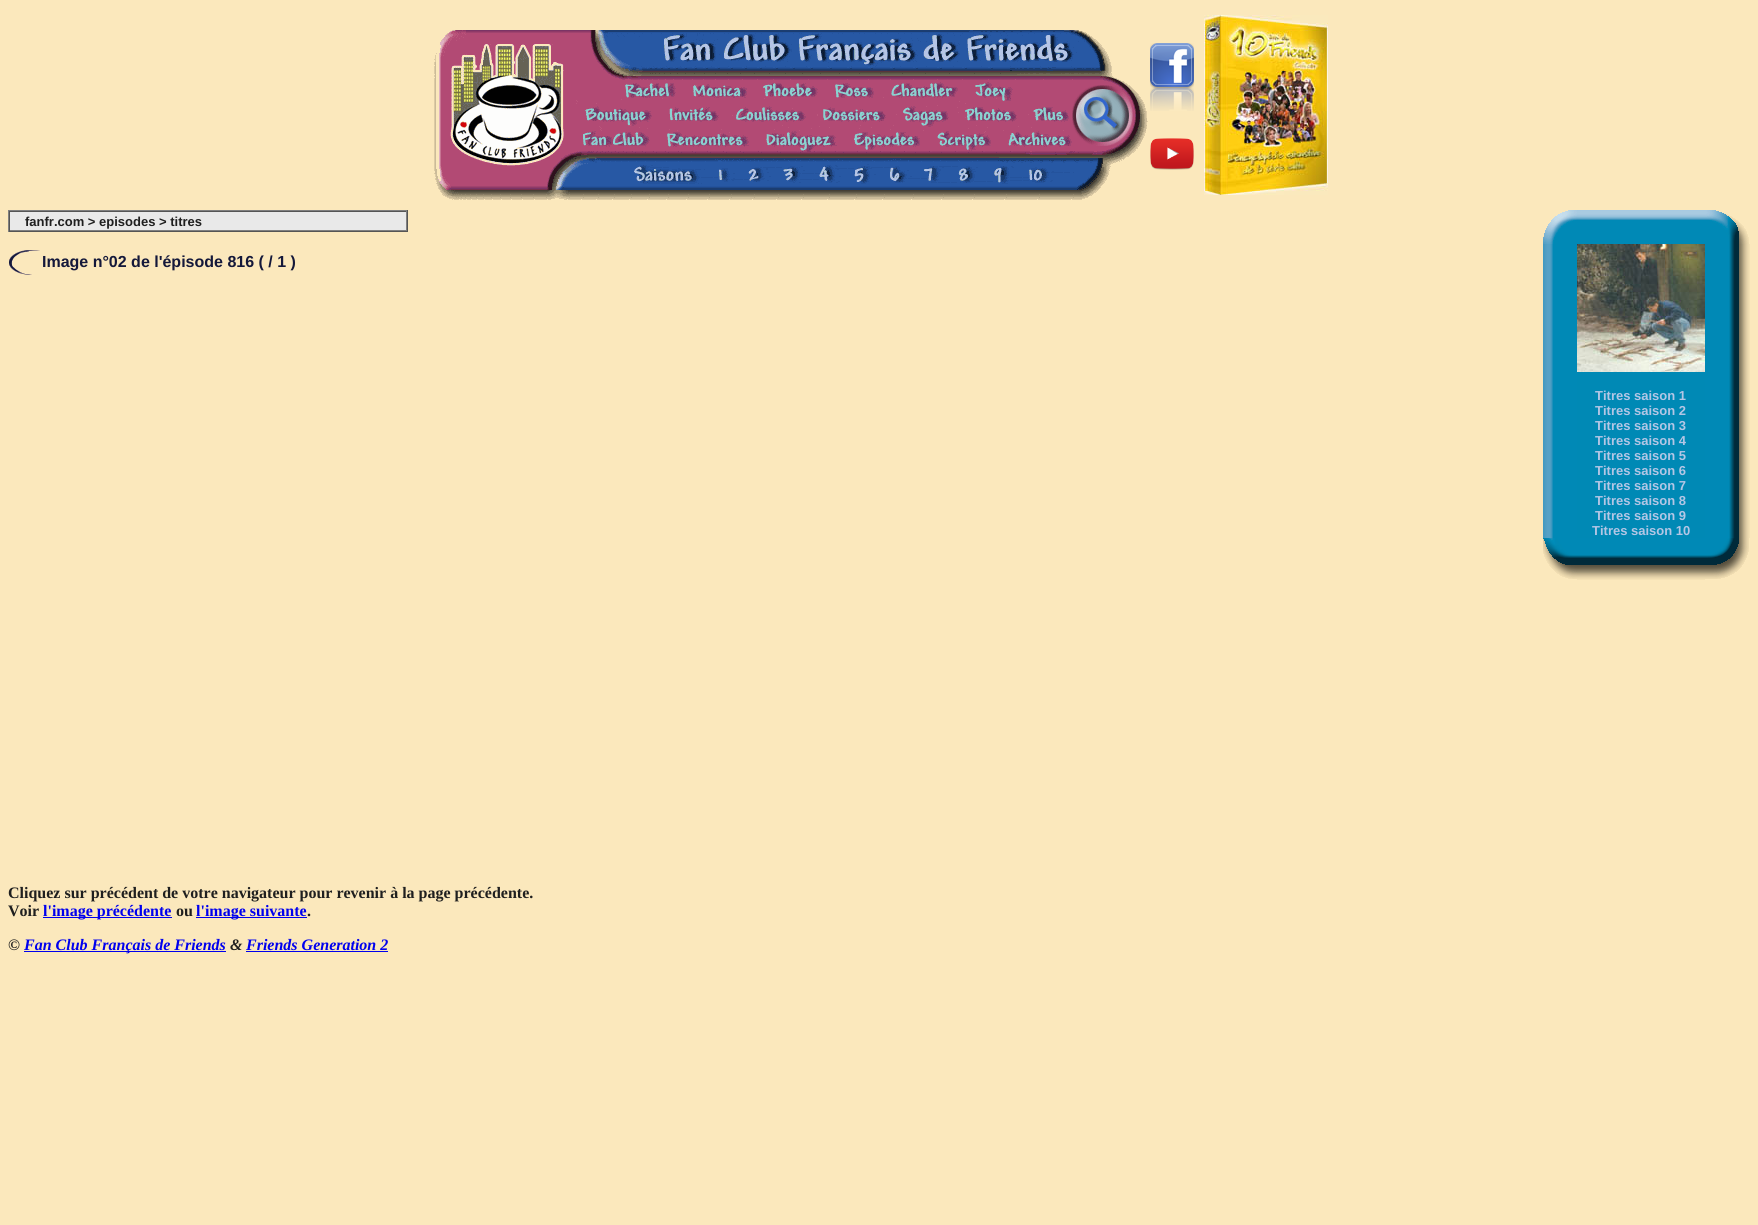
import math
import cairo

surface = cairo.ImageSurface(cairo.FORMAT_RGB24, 1758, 1225)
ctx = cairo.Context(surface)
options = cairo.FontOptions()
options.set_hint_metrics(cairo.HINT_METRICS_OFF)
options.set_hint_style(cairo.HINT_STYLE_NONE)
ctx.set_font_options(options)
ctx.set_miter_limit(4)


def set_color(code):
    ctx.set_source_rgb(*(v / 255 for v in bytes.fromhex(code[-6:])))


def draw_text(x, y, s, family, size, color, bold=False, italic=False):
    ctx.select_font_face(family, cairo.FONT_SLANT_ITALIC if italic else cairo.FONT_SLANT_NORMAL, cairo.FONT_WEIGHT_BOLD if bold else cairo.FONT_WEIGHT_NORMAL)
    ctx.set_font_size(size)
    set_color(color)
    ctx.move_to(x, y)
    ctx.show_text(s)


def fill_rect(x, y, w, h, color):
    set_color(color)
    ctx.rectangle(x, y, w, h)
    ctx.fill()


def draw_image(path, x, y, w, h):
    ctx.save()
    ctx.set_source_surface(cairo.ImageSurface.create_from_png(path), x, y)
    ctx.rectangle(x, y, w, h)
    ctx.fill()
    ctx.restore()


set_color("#fbe8bc")
ctx.paint()
draw_image("assets/img1.png", 434, 30, 714, 170)
draw_image("assets/img2.png", 1150, 43, 44, 68)
draw_image("assets/img3.png", 1150, 138, 44, 32)
draw_image("assets/img4.png", 1204, 15, 124, 180)
fill_rect(8, 210, 400, 1, "#808080")
fill_rect(407, 210, 1, 22, "#555555")
fill_rect(8, 231, 400, 1, "#555555")
fill_rect(8, 210, 1, 22, "#808080")
fill_rect(10, 212, 396, 18, "#e9e9e9")
fill_rect(9, 211, 398, 1, "#555555")
fill_rect(406, 211, 1, 20, "#808080")
fill_rect(9, 230, 398, 1, "#808080")
fill_rect(9, 211, 1, 20, "#555555")
draw_text(25, 226, "fanfr.com > episodes > titres", "Liberation Sans", 13, "#1f1f1f", bold=True)
draw_image("assets/img5.png", 9, 250, 31, 25)
draw_text(42, 267, "Image n°02 de l'épisode 816 ( / 1 )", "Liberation Sans", 16, "#14183a", bold=True)
draw_text(8, 898, "Cliquez sur précédent de votre navigateur pour revenir à la page précédente.", "Liberation Serif", 16, "#1f1f1f", bold=True)
draw_text(8, 916, "Voir", "Liberation Serif", 16, "#1f1f1f", bold=True)
fill_rect(43, 917, 129, 1, "#0000ee")
draw_text(43, 916, "l'image précédente", "Liberation Serif", 16, "#0000ee", bold=True)
draw_text(176, 916, "ou", "Liberation Serif", 16, "#1f1f1f", bold=True)
fill_rect(196, 917, 111, 1, "#0000ee")
draw_text(196, 916, "l'image suivante", "Liberation Serif", 16, "#0000ee", bold=True)
draw_text(307, 916, ".", "Liberation Serif", 16, "#1f1f1f", bold=True)
draw_text(8, 950, "©", "Liberation Serif", 16, "#1f1f1f", bold=True, italic=True)
fill_rect(24, 951, 202, 1, "#0000ee")
draw_text(24, 950, "Fan Club Français de Friends", "Liberation Serif", 16, "#0000ee", bold=True, italic=True)
draw_text(230, 950, "&", "Liberation Serif", 16, "#1f1f1f", bold=True, italic=True)
draw_text(246, 950, "Friends Generation 2", "Liberation Serif", 16, "#0000ee", bold=True, italic=True)
fill_rect(246, 951, 142, 1, "#0000ee")
draw_image("assets/img6.png", 1543, 210, 34, 34)
draw_image("assets/img7.png", 1577, 210, 128, 34)
draw_image("assets/img8.png", 1705, 210, 44, 34)
draw_image("assets/img9.png", 1543, 244, 34, 294)
fill_rect(1577, 372, 128, 166, "#0089b5")
draw_image("assets/img10.png", 1577, 244, 128, 128)
draw_text(1595, 400, "Titres saison 1", "Liberation Sans", 13, "#b4c6e5", bold=True)
draw_text(1595, 415, "Titres saison 2", "Liberation Sans", 13, "#b4c6e5", bold=True)
draw_text(1595, 430, "Titres saison 3", "Liberation Sans", 13, "#b4c6e5", bold=True)
draw_text(1595, 445, "Titres saison 4", "Liberation Sans", 13, "#b4c6e5", bold=True)
draw_text(1595, 460, "Titres saison 5", "Liberation Sans", 13, "#b4c6e5", bold=True)
draw_text(1595, 475, "Titres saison 6", "Liberation Sans", 13, "#b4c6e5", bold=True)
draw_text(1595, 490, "Titres saison 7", "Liberation Sans", 13, "#b4c6e5", bold=True)
draw_text(1595, 505, "Titres saison 8", "Liberation Sans", 13, "#b4c6e5", bold=True)
draw_text(1595, 520, "Titres saison 9", "Liberation Sans", 13, "#b4c6e5", bold=True)
draw_text(1592, 535, "Titres saison 10", "Liberation Sans", 13, "#b4c6e5", bold=True)
draw_image("assets/img11.png", 1705, 244, 45, 294)
draw_image("assets/img12.png", 1543, 538, 34, 41)
draw_image("assets/img13.png", 1577, 538, 128, 42)
draw_image("assets/img14.png", 1705, 538, 44, 41)
surface.write_to_png("output.png")
